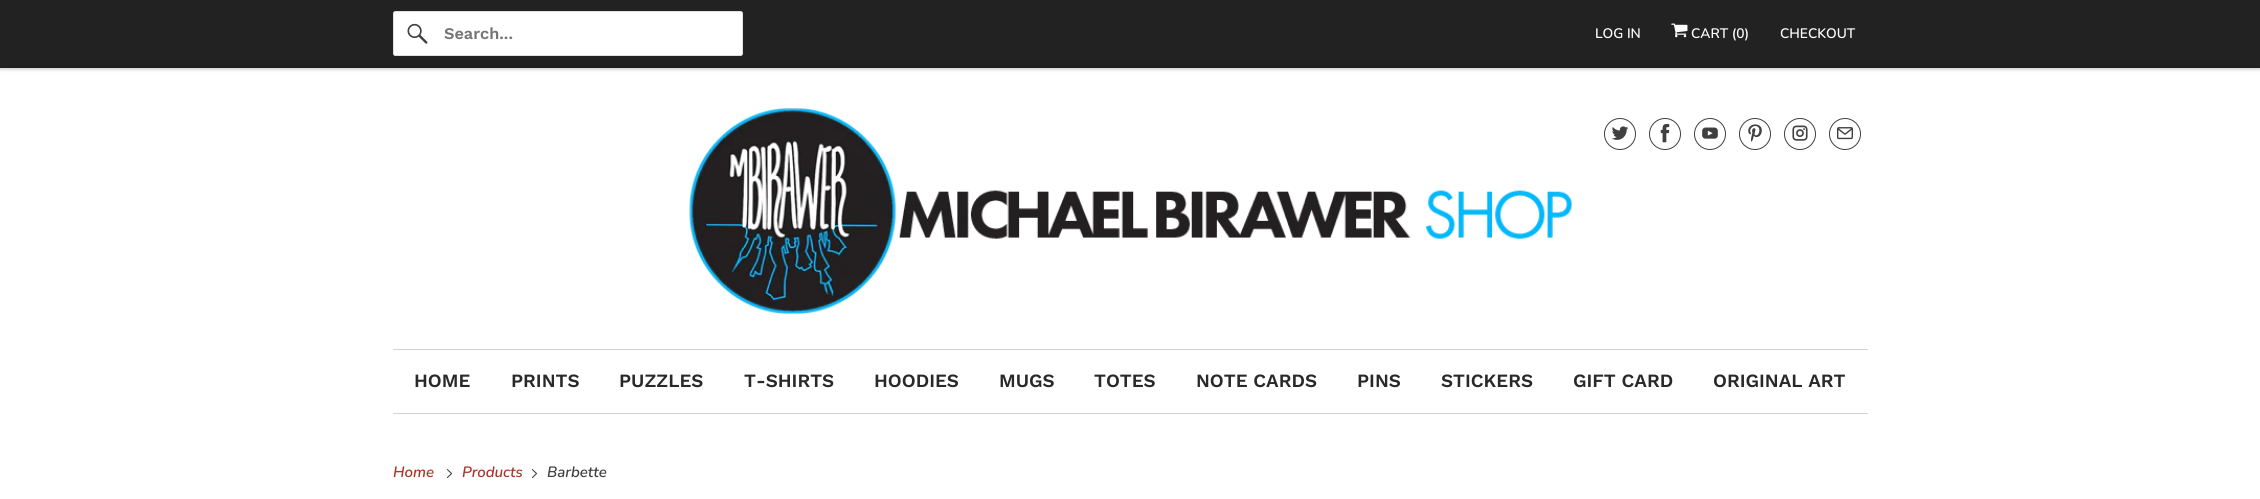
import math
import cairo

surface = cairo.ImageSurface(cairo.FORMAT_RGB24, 2260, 499)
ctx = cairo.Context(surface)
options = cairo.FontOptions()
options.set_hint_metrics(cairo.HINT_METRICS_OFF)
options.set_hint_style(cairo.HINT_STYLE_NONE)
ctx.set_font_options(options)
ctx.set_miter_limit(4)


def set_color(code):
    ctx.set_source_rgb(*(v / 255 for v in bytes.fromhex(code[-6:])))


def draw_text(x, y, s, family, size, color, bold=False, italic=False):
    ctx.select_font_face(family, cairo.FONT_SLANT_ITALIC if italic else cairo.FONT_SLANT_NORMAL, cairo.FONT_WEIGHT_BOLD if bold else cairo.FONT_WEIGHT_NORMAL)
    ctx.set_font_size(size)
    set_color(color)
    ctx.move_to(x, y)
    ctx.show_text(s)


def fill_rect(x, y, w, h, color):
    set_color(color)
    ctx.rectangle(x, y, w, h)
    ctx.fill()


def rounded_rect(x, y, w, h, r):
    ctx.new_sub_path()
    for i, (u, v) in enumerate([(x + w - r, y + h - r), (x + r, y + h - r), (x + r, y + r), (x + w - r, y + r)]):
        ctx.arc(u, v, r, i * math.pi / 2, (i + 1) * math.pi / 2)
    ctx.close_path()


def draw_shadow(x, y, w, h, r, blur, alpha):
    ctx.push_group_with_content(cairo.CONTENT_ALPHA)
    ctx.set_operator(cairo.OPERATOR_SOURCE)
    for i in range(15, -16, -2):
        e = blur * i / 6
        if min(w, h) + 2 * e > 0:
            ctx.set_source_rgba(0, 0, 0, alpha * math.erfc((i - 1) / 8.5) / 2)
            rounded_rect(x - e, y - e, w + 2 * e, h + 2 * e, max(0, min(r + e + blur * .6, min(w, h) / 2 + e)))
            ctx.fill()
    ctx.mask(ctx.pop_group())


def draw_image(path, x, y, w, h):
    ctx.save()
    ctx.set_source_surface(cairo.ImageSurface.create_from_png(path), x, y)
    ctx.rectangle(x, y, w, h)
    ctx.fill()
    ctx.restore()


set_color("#ffffff")
ctx.paint()
set_color("#000000")
draw_shadow(0, 1, 2260, 68, 0, 2, 0.25)
fill_rect(0, 0, 2260, 68, "#222222")
fill_rect(0, 66, 2260, 1, "#1f1f1f")
set_color("#ffffff")
rounded_rect(393.5, 11.5, 349, 44, 2)
ctx.fill_preserve()
set_color("#dfdfdf")
ctx.set_line_width(1)
ctx.stroke()
draw_image("assets/img1.png", 407, 23, 21, 21)
draw_text(444, 39, "Search...", "Work Sans SemiBold", 16.25, "#757575")
draw_text(1595, 38, "LOG IN", "Nunito SemiBold", 13.75, "#fffdfd")
draw_image("assets/img2.png", 1671, 23, 17, 15)
draw_text(1691, 38, "CART (0)", "Nunito SemiBold", 13.75, "#fffdfd")
draw_text(1780, 38, "CHECKOUT", "Nunito SemiBold", 13.75, "#fffdfd")
draw_image("assets/img3.png", 689, 108, 883, 206)
ctx.arc(1620, 134, 15.5, 0, 2 * math.pi)
set_color("#404040")
ctx.stroke()
draw_image("assets/img4.png", 1611, 126, 18, 14)
ctx.arc(1665, 134, 15.5, 0, 2 * math.pi)
ctx.stroke()
draw_image("assets/img5.png", 1660, 124, 10, 19)
ctx.arc(1710, 134, 15.5, 0, 2 * math.pi)
ctx.stroke()
draw_image("assets/img6.png", 1702, 127, 16, 12)
ctx.arc(1755, 134, 15.5, 0, 2 * math.pi)
ctx.stroke()
draw_image("assets/img7.png", 1748, 124, 14, 18)
ctx.arc(1800, 134, 15.5, 0, 2 * math.pi)
ctx.stroke()
draw_image("assets/img8.png", 1792, 125, 16, 16)
ctx.arc(1845, 134, 15.5, 0, 2 * math.pi)
ctx.stroke()
draw_image("assets/img9.png", 1837, 127, 16, 13)
fill_rect(393, 349, 1475, 1, "#d3d3d3")
fill_rect(393, 413, 1475, 1, "#d3d3d3")
draw_text(414, 387, "HOME", "Work Sans SemiBold", 18.75, "#2a2929")
draw_text(511, 387, "PRINTS", "Work Sans SemiBold", 18.75, "#2a2929")
draw_text(619, 387, "PUZZLES", "Work Sans SemiBold", 18.75, "#2a2929")
draw_text(744, 387, "T-SHIRTS", "Work Sans SemiBold", 18.75, "#2a2929")
draw_text(874, 387, "HOODIES", "Work Sans SemiBold", 18.75, "#2a2929")
draw_text(999, 387, "MUGS", "Work Sans SemiBold", 18.75, "#2a2929")
draw_text(1094, 387, "TOTES", "Work Sans SemiBold", 18.75, "#2a2929")
draw_text(1196, 387, "NOTE CARDS", "Work Sans SemiBold", 18.75, "#2a2929")
draw_text(1357, 387, "PINS", "Work Sans SemiBold", 18.75, "#2a2929")
draw_text(1441, 387, "STICKERS", "Work Sans SemiBold", 18.75, "#2a2929")
draw_text(1573, 387, "GIFT CARD", "Work Sans SemiBold", 18.75, "#2a2929")
draw_text(1713, 387, "ORIGINAL ART", "Work Sans SemiBold", 18.75, "#2a2929")
draw_text(393, 477, "Home", "Nunito SemiBold", 15, "#a93527", italic=True)
draw_image("assets/img10.png", 446, 469, 7, 9)
draw_text(462, 477, "Products", "Nunito SemiBold", 15, "#a93527", italic=True)
draw_image("assets/img10.png", 531, 469, 7, 9)
draw_text(547, 477, "Barbette", "Nunito SemiBold", 15, "#404040", italic=True)
surface.write_to_png("output.png")
